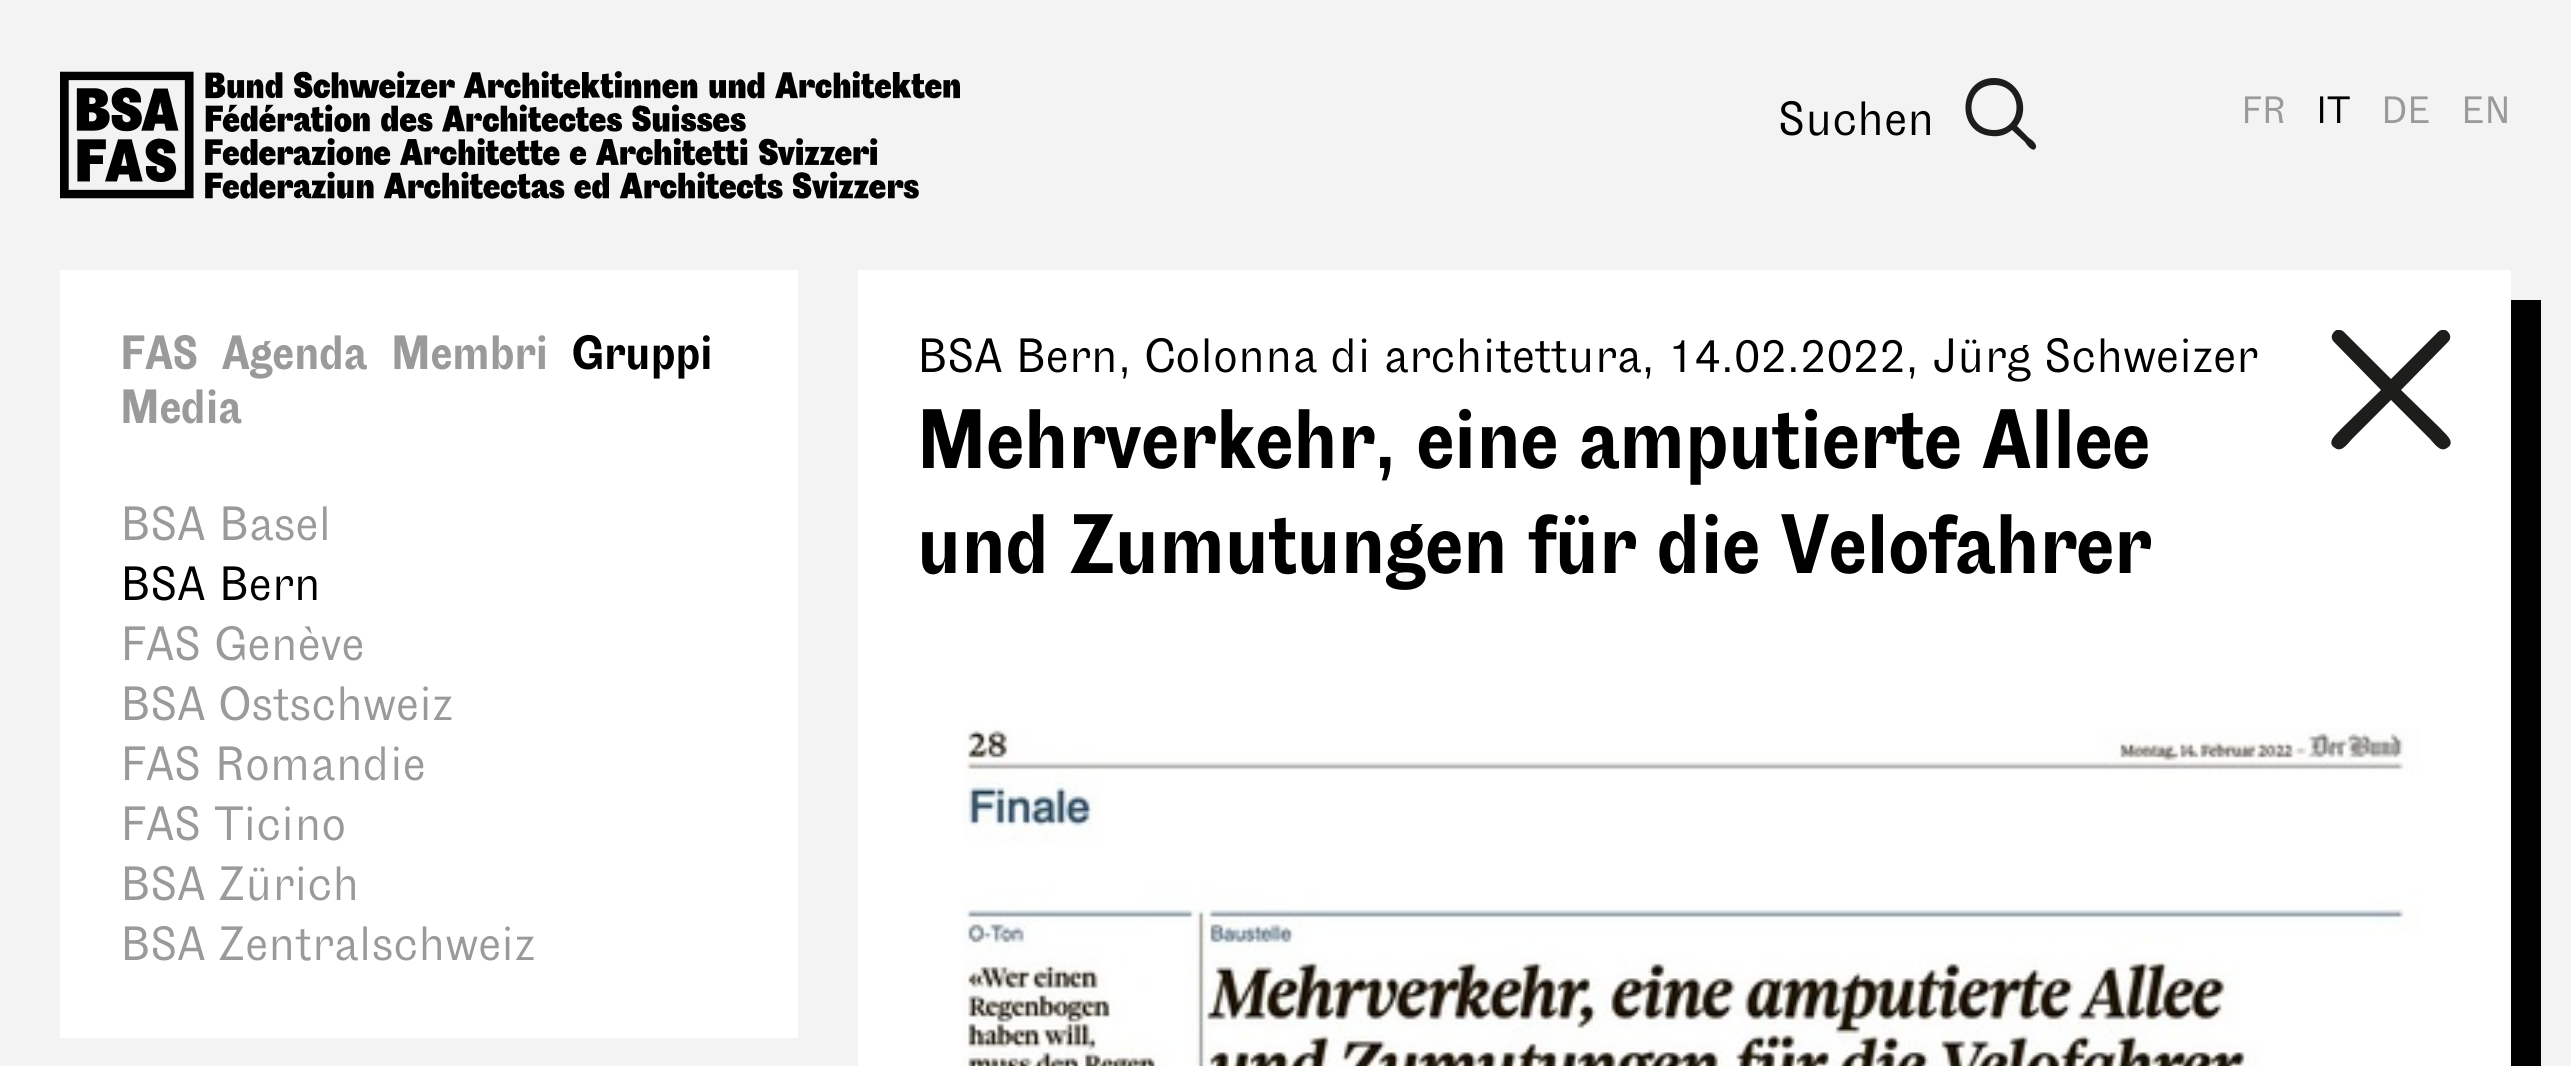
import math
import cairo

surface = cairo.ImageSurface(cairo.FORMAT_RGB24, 2571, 1066)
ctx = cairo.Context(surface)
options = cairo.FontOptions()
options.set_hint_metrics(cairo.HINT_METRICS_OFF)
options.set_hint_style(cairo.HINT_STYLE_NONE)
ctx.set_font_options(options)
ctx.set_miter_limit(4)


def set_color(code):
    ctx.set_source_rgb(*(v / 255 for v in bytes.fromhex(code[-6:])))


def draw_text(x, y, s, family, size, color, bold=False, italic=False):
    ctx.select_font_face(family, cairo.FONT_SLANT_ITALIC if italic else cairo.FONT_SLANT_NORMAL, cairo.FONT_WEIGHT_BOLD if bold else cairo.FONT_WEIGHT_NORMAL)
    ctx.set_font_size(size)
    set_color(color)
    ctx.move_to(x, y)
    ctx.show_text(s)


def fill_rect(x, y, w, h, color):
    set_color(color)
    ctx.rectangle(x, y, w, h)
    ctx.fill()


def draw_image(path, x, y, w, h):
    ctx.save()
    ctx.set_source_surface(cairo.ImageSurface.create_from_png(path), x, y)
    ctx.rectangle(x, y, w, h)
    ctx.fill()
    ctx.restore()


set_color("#f3f3f3")
ctx.paint()
draw_image("assets/img1.png", 60, 71, 900, 128)
draw_text(2241, 123, "FR", "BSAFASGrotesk", 38, "#9a9a9a")
draw_text(2316, 123, "IT", "BSAFASGrotesk", 38, "#000000")
draw_text(2381, 123, "DE", "BSAFASGrotesk", 38, "#9a9a9a")
draw_text(2461, 123, "EN", "BSAFASGrotesk", 38, "#9a9a9a")
fill_rect(60, 270, 738, 768, "#ffffff")
draw_text(120, 369, "FAS", "BSAFASGrotesk", 48, "#9a9a9a", bold=True)
draw_text(222, 369, "Agenda", "BSAFASGrotesk", 48, "#9a9a9a", bold=True)
draw_text(391, 369, "Membri", "BSAFASGrotesk", 48, "#9a9a9a", bold=True)
draw_text(572, 369, "Gruppi", "BSAFASGrotesk", 48, "#000000", bold=True)
draw_text(120, 423, "Media", "BSAFASGrotesk", 48, "#9a9a9a", bold=True)
draw_text(120, 540, "BSA Basel", "BSAFASGrotesk", 48, "#9a9a9a")
draw_text(120, 600, "BSA Bern", "BSAFASGrotesk", 48, "#000000")
draw_text(120, 660, "FAS Genève", "BSAFASGrotesk", 48, "#9a9a9a")
draw_text(120, 720, "BSA Ostschweiz", "BSAFASGrotesk", 48, "#9a9a9a")
draw_text(120, 780, "FAS Romandie", "BSAFASGrotesk", 48, "#9a9a9a")
draw_text(120, 840, "FAS Ticino", "BSAFASGrotesk", 48, "#9a9a9a")
draw_text(120, 900, "BSA Zürich", "BSAFASGrotesk", 48, "#9a9a9a")
draw_text(120, 960, "BSA Zentralschweiz", "BSAFASGrotesk", 48, "#9a9a9a")
draw_text(1778, 135, "Suchen", "BSAFASGrotesk", 48, "#000000")
set_color("#1d1d1b")
ctx.new_path()
ctx.move_to(1994, 85)
ctx.curve_to(1964, 85, 1964, 130, 1994, 130)
ctx.curve_to(2024, 130, 2024, 85, 1994, 85)
ctx.move_to(1994, 78)
ctx.curve_to(2018, 78, 2032, 107, 2017, 126)
ctx.line_to(2029, 138)
ctx.curve_to(2031, 139, 2039, 145, 2035, 149)
ctx.curve_to(2032, 152, 2026, 144, 2025, 142)
ctx.line_to(2012, 130)
ctx.curve_to(2006, 135, 1999, 137, 1991, 136)
ctx.curve_to(1955, 133, 1958, 78, 1994, 78)
ctx.close_path()
ctx.fill()
set_color("#000000")
ctx.new_path()
ctx.move_to(888, 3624)
ctx.line_to(888, 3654)
ctx.line_to(2541, 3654)
ctx.line_to(2541, 300)
ctx.line_to(2511, 300)
ctx.line_to(2511, 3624)
ctx.close_path()
ctx.fill()
fill_rect(858, 270, 1653, 796, "#ffffff")
draw_text(917, 372, "BSA Bern, Colonna di architettura, 14.02.2022, Jürg Schweizer", "BSAFASGrotesk", 48, "#000000")
ctx.save()
ctx.rectangle(2331, 330, 120, 120)
ctx.clip()
set_color("#1d1d1b")
ctx.new_path()
ctx.move_to(2401, 390)
ctx.line_to(2448, 342)
ctx.curve_to(2451, 339, 2451, 335, 2448, 332)
ctx.curve_to(2446, 329, 2441, 329, 2438, 332)
ctx.line_to(2391, 379)
ctx.line_to(2344, 332)
ctx.curve_to(2341, 329, 2336, 329, 2334, 332)
ctx.curve_to(2331, 335, 2331, 339, 2334, 342)
ctx.line_to(2381, 390)
ctx.line_to(2341, 429)
ctx.curve_to(2338, 433, 2325, 442, 2335, 448)
ctx.curve_to(2342, 453, 2348, 443, 2352, 439)
ctx.line_to(2391, 400)
ctx.line_to(2430, 439)
ctx.curve_to(2434, 443, 2440, 453, 2447, 448)
ctx.curve_to(2457, 442, 2444, 433, 2441, 429)
ctx.close_path()
ctx.fill()
ctx.restore()
draw_text(917, 468, "Mehrverkehr, eine amputierte Allee", "BSAFASGrotesk", 84, "#000000", bold=True)
draw_text(917, 573, "und Zumutungen für die Velofahrer", "BSAFASGrotesk", 84, "#000000", bold=True)
draw_image("assets/img2.png", 962, 727, 1458, 339)
surface.write_to_png("output.png")
